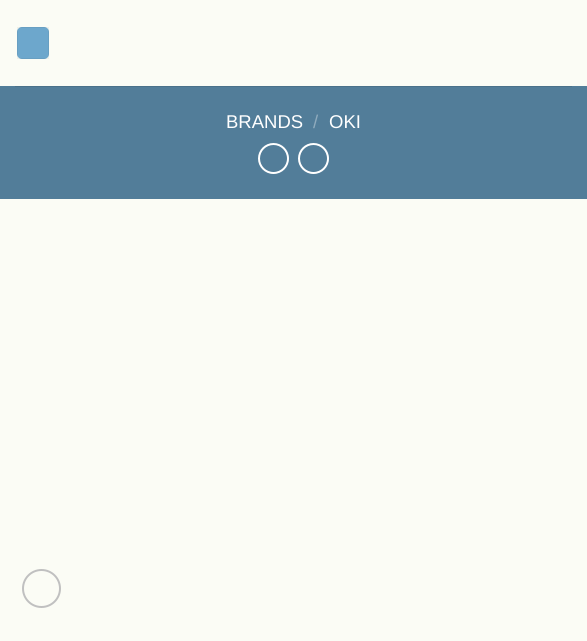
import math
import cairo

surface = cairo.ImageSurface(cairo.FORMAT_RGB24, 587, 641)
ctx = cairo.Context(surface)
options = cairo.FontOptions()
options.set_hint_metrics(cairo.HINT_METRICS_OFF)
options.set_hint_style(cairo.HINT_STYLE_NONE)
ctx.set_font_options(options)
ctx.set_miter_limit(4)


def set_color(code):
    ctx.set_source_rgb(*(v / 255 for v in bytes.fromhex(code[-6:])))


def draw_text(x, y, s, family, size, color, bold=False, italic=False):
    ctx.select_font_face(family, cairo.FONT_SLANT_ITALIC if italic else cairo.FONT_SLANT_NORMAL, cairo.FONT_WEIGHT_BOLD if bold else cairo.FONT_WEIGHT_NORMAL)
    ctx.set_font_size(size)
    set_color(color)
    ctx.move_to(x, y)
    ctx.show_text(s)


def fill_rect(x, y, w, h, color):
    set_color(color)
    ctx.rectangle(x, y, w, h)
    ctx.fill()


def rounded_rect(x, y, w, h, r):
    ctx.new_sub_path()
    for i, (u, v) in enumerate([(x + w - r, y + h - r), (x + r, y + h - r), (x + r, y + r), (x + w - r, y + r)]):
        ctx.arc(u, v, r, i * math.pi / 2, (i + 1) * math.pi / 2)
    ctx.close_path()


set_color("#fbfcf5")
ctx.paint()
set_color("#6da7cc")
rounded_rect(17, 27, 32, 32, 5)
ctx.fill()
ctx.rectangle(17.5, 27.5, 31, 31)
ctx.set_source_rgba(0, 0, 0, 0.05)
ctx.set_line_width(1)
ctx.stroke()
fill_rect(0, 86, 587, 113, "#527d99")
fill_rect(15, 86, 557, 1, "#4a718a")
draw_text(226, 128, "BRANDS", "Liberation Sans", 18.5, "#ffffff")
draw_text(313, 128, "/", "Liberation Sans", 18.5, "#8fabbd")
draw_text(329, 128, "OKI", "Liberation Sans", 18.5, "#ffffff")
ctx.new_path()
ctx.arc(273.5, 158.5, 14.5, 0, 2 * math.pi)
ctx.set_line_width(2)
ctx.stroke()
ctx.arc(313.5, 158.5, 14.5, 0, 2 * math.pi)
ctx.stroke()
ctx.arc(41.5, 588.5, 18.5, 0, 2 * math.pi)
set_color("#c0c0c0")
ctx.stroke()
surface.write_to_png("output.png")
